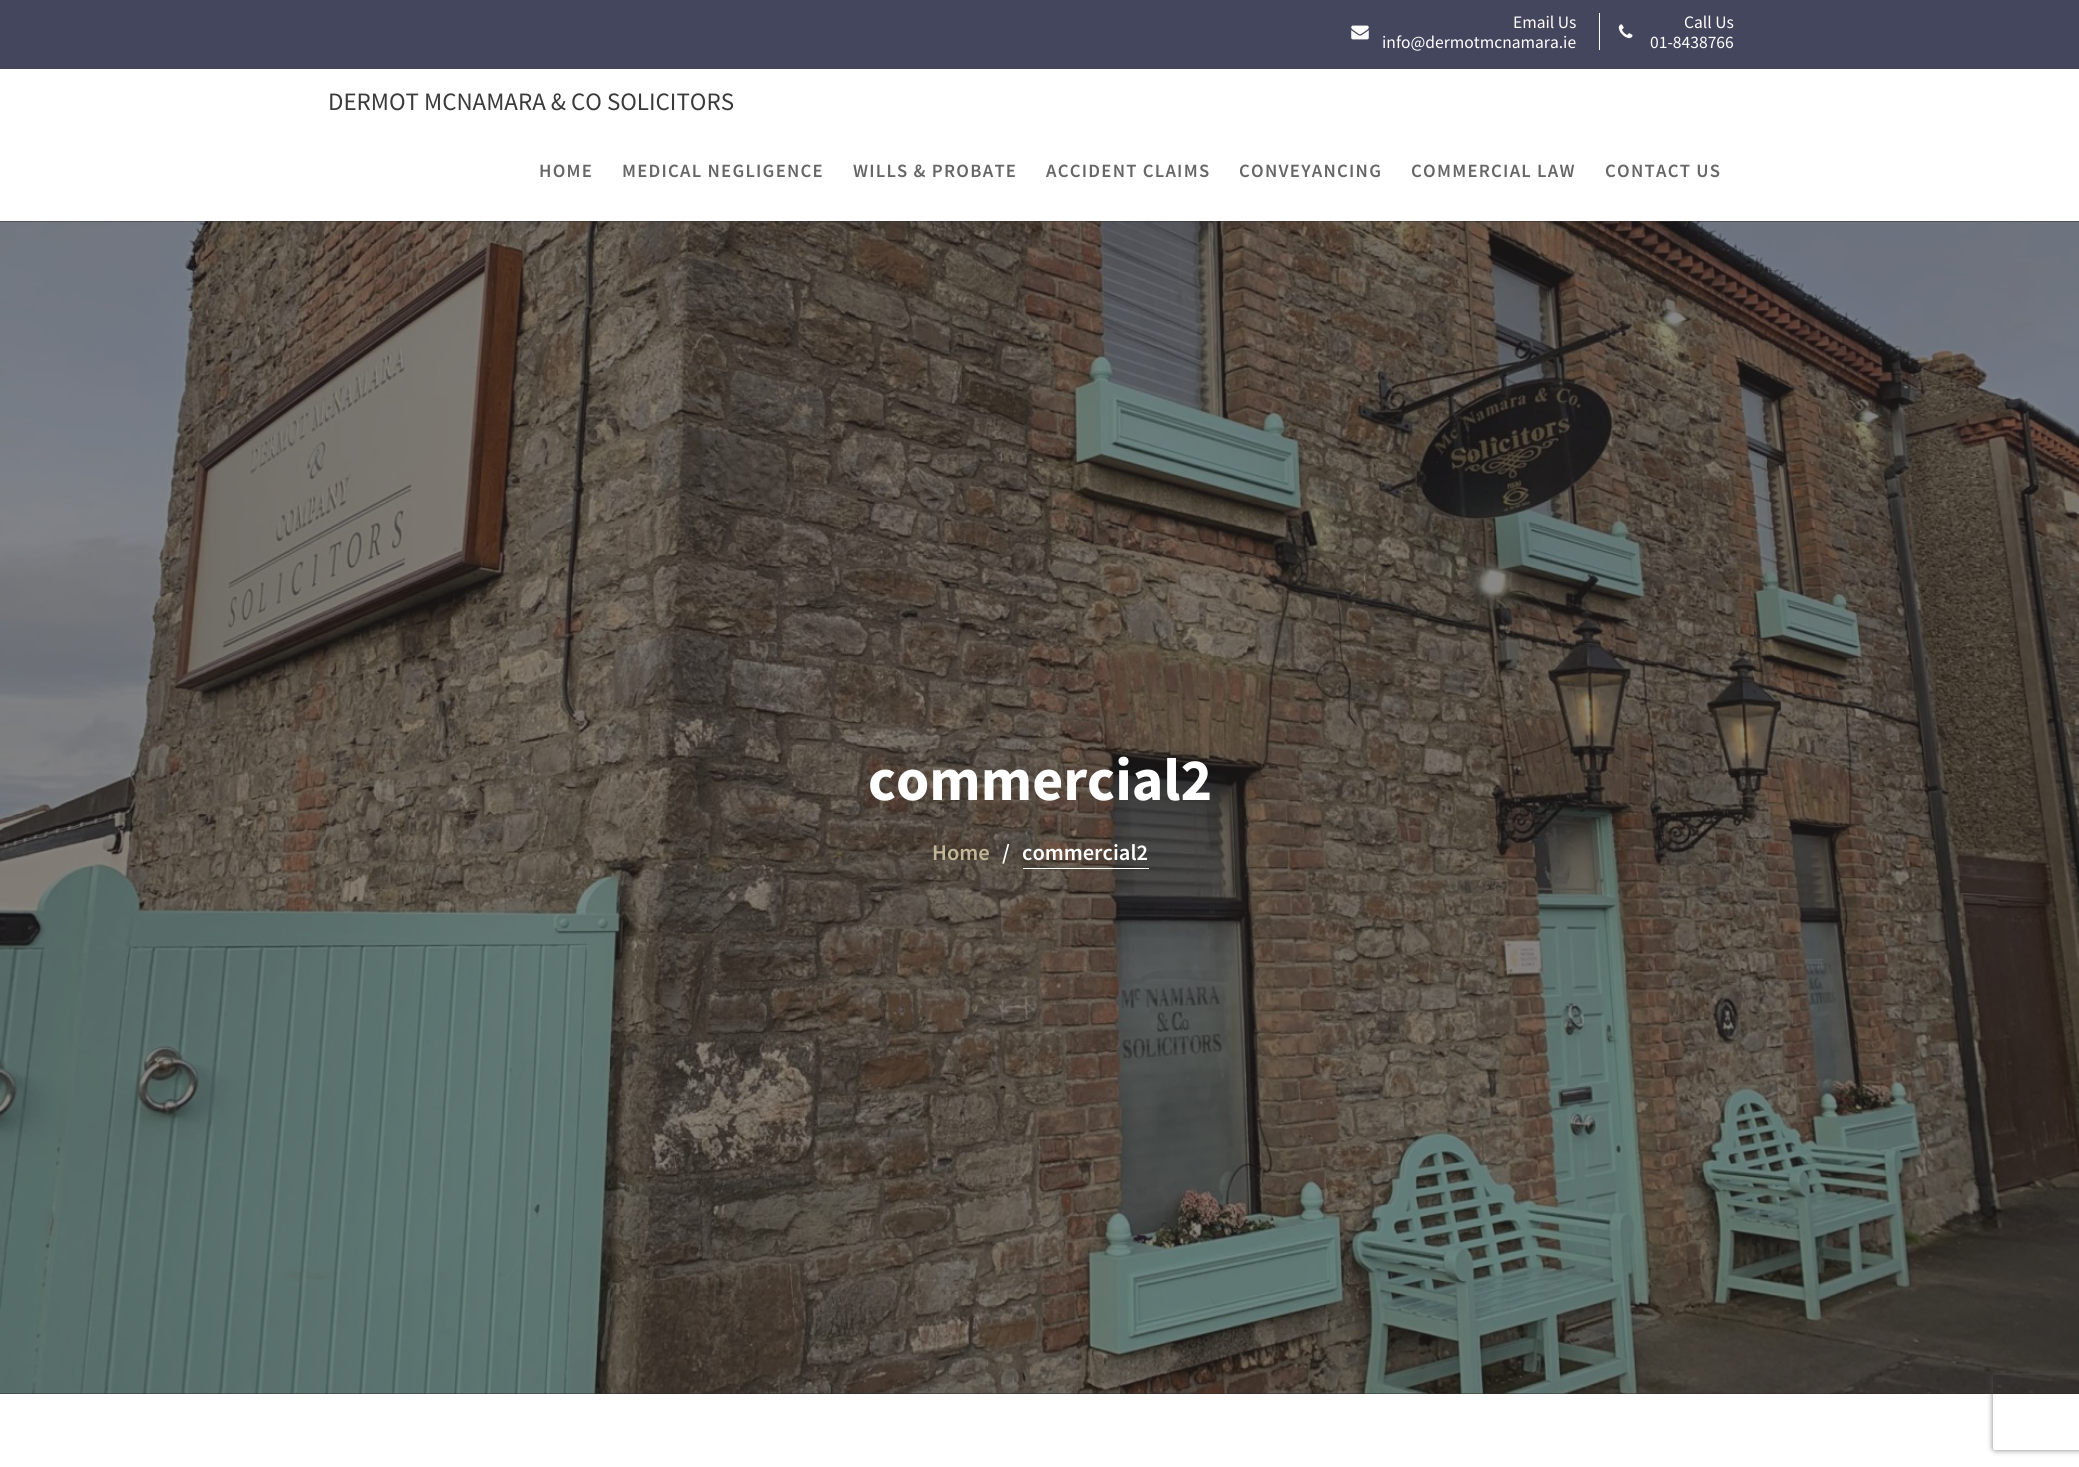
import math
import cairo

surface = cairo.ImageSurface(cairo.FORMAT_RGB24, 2079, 1467)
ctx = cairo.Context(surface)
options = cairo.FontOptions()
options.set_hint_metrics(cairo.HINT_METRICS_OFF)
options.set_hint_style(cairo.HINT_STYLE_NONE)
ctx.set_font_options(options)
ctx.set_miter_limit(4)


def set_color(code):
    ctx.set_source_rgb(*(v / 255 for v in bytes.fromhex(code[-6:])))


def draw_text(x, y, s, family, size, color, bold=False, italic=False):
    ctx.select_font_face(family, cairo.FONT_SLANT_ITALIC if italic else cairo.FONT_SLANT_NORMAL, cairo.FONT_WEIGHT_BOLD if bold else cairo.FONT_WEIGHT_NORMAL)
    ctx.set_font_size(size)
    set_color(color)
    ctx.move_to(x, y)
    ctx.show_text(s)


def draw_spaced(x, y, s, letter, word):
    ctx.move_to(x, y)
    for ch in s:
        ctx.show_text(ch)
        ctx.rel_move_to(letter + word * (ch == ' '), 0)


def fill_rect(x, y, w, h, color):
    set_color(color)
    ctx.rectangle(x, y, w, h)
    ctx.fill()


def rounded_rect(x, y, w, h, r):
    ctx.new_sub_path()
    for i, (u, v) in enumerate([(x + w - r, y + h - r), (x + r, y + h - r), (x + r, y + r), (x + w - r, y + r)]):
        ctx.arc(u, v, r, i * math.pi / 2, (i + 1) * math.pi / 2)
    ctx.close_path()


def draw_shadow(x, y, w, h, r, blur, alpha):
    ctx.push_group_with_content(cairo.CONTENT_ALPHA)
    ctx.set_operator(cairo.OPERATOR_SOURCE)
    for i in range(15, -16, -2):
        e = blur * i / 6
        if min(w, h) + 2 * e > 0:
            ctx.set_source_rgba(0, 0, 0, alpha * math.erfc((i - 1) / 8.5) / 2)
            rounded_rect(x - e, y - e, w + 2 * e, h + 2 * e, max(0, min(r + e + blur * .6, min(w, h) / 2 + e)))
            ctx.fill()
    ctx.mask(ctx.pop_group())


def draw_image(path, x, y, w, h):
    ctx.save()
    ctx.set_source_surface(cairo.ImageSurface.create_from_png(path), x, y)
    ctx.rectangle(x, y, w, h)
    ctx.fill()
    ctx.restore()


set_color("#ffffff")
ctx.paint()
fill_rect(0, 0, 2079, 69, "#44465d")
draw_image("assets/img1.png", 1351, 25, 18, 15)
draw_text(1513, 28, "Email Us", "Source Sans Pro", 17.5, "#ffffff")
draw_text(1382, 48, "info@dermotmcnamara.ie", "Source Sans Pro", 17.5, "#ffffff")
fill_rect(1599, 13, 1, 37, "#ffffff")
draw_image("assets/img2.png", 1618, 24, 15, 15)
draw_text(1684, 28, "Call Us", "Source Sans Pro", 17.5, "#ffffff")
draw_text(1650, 48, "01-8438766", "Source Sans Pro", 17.5, "#ffffff")
draw_text(328, 110, "DERMOT MCNAMARA & CO SOLICITORS", "Source Sans Pro", 25, "#3a3a3a")
ctx.select_font_face("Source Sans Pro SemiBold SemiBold")
ctx.set_font_size(18.75)
set_color("#666666")
draw_spaced(539, 177, "HOME", 1.25, 0)
draw_spaced(622, 177, "MEDICAL NEGLIGENCE", 1.25, 0)
draw_spaced(853, 177, "WILLS & PROBATE", 1.25, 0)
draw_spaced(1046, 177, "ACCIDENT CLAIMS", 1.25, 0)
draw_spaced(1239, 177, "CONVEYANCING", 1.25, 0)
draw_spaced(1411, 177, "COMMERCIAL LAW", 1.25, 0)
draw_spaced(1605, 177, "CONTACT US", 1.25, 0)
fill_rect(0, 221, 2079, 1173, "#2d2d2d")
draw_image("assets/img3.png", 0, 221, 2079, 1173)
ctx.save()
ctx.set_fill_rule(cairo.FILL_RULE_EVEN_ODD)
ctx.new_path()
ctx.move_to(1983, 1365)
ctx.line_to(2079, 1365)
ctx.line_to(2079, 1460)
ctx.line_to(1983, 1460)
ctx.close_path()
ctx.move_to(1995.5, 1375)
ctx.line_to(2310.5, 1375)
ctx.curve_to(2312, 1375, 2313, 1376, 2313, 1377.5)
ctx.line_to(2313, 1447.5)
ctx.curve_to(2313, 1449, 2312, 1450, 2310.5, 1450)
ctx.line_to(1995.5, 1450)
ctx.curve_to(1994, 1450, 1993, 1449, 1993, 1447.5)
ctx.line_to(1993, 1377.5)
ctx.curve_to(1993, 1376, 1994, 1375, 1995.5, 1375)
ctx.close_path()
ctx.clip()
set_color("#808080")
draw_shadow(1993, 1375, 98, 75, 2.5, 3, 1)
ctx.restore()
ctx.set_source_rgba(0.157, 0.149, 0.149, 0.55)
ctx.rectangle(0, 221, 2079, 1173)
ctx.fill()
draw_text(868, 800, "commercial2", "Source Sans Pro", 60, "#ffffff", bold=True)
draw_text(932, 860, "Home", "Source Sans Pro SemiBold SemiBold", 22.5, "#c2b697")
draw_text(1002, 860, "/", "Source Sans Pro SemiBold SemiBold", 22.5, "#ffffff")
fill_rect(1023, 868, 126, 1, "#ffffff")
draw_text(1022, 860, "commercial2", "Source Sans Pro SemiBold SemiBold", 22.5, "#ffffff")
surface.write_to_png("output.png")
